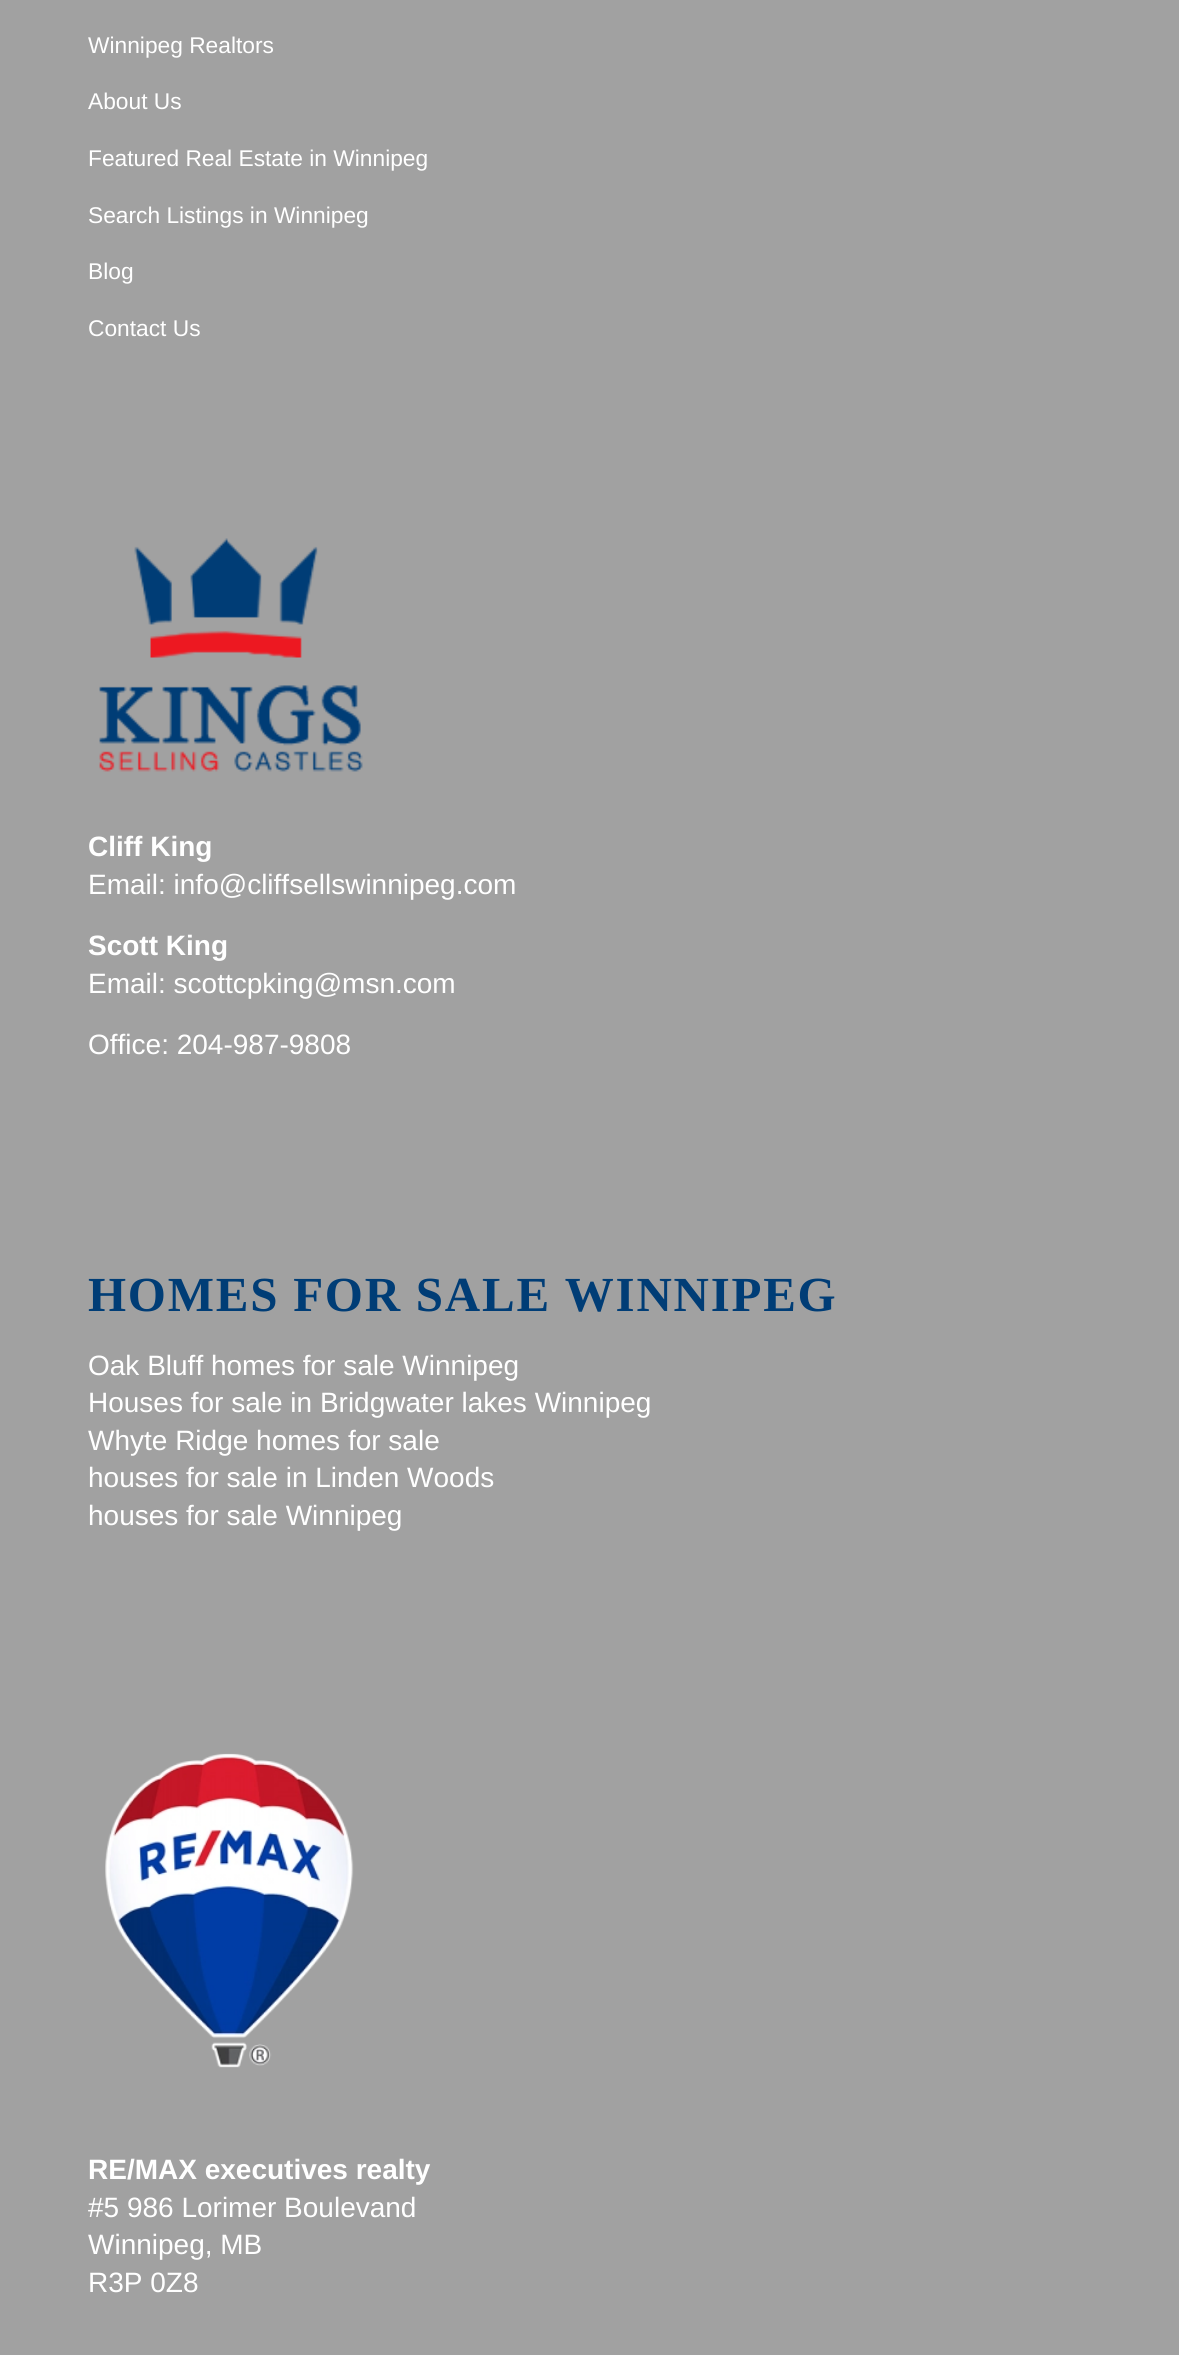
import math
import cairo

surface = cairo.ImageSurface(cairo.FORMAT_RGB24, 1179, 2355)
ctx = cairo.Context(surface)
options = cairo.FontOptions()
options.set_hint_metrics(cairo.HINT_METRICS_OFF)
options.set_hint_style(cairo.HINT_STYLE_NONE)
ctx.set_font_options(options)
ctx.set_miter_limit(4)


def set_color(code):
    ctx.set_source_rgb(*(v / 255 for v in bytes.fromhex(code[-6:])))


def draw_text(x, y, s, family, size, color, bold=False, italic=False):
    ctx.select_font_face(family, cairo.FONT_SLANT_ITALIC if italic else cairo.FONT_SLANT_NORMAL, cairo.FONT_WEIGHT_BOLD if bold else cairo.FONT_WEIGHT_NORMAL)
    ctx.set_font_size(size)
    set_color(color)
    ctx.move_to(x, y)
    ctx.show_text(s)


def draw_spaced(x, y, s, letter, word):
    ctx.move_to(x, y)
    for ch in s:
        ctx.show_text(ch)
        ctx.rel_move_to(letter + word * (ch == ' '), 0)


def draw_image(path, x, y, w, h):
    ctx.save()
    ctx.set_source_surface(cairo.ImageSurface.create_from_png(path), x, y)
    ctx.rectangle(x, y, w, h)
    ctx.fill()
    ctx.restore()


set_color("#a1a1a1")
ctx.paint()
draw_text(88, 53, "Winnipeg Realtors", "Liberation Sans", 22.75, "#ffffff")
draw_text(88, 109, "About Us", "Liberation Sans", 22.75, "#ffffff")
draw_text(88, 166, "Featured Real Estate in Winnipeg", "Liberation Sans", 22.75, "#ffffff")
draw_text(88, 223, "Search Listings in Winnipeg", "Liberation Sans", 22.75, "#ffffff")
draw_text(88, 279, "Blog", "Liberation Sans", 22.75, "#ffffff")
draw_text(88, 336, "Contact Us", "Liberation Sans", 22.75, "#ffffff")
draw_image("assets/img1.png", 99, 538, 264, 234)
draw_text(88, 856, "Cliff King", "Liberation Sans", 28, "#ffffff", bold=True)
draw_text(88, 894, "Email: info@cliffsellswinnipeg.com", "Liberation Sans", 28, "#ffffff")
draw_text(88, 955, "Scott King", "Liberation Sans", 28, "#ffffff", bold=True)
draw_text(88, 993, "Email: scottcpking@msn.com", "Liberation Sans", 28, "#ffffff")
draw_text(88, 1054, "Office: 204-987-9808", "Liberation Sans", 28, "#ffffff")
ctx.select_font_face("Liberation Serif", cairo.FONT_SLANT_NORMAL, cairo.FONT_WEIGHT_BOLD)
ctx.set_font_size(49)
set_color("#003d76")
draw_spaced(88, 1311, "HOMES FOR SALE WINNIPEG", 1.75, 0)
draw_text(88, 1375, "Oak Bluff homes for sale Winnipeg", "Liberation Sans", 28, "#ffffff")
draw_text(88, 1412, "Houses for sale in Bridgwater lakes Winnipeg", "Liberation Sans", 28, "#ffffff")
draw_text(88, 1450, "Whyte Ridge homes for sale", "Liberation Sans", 28, "#ffffff")
draw_text(88, 1487, "houses for sale in Linden Woods", "Liberation Sans", 28, "#ffffff")
draw_text(88, 1525, "houses for sale Winnipeg", "Liberation Sans", 28, "#ffffff")
draw_image("assets/img2.png", 105, 1753, 249, 315)
draw_text(88, 2179, "RE/MAX executives realty", "Liberation Sans", 28, "#ffffff", bold=True)
draw_text(88, 2217, "#5 986 Lorimer Boulevand", "Liberation Sans", 28, "#ffffff")
draw_text(88, 2254, "Winnipeg, MB", "Liberation Sans", 28, "#ffffff")
draw_text(88, 2292, "R3P 0Z8", "Liberation Sans", 28, "#ffffff")
surface.write_to_png("output.png")
